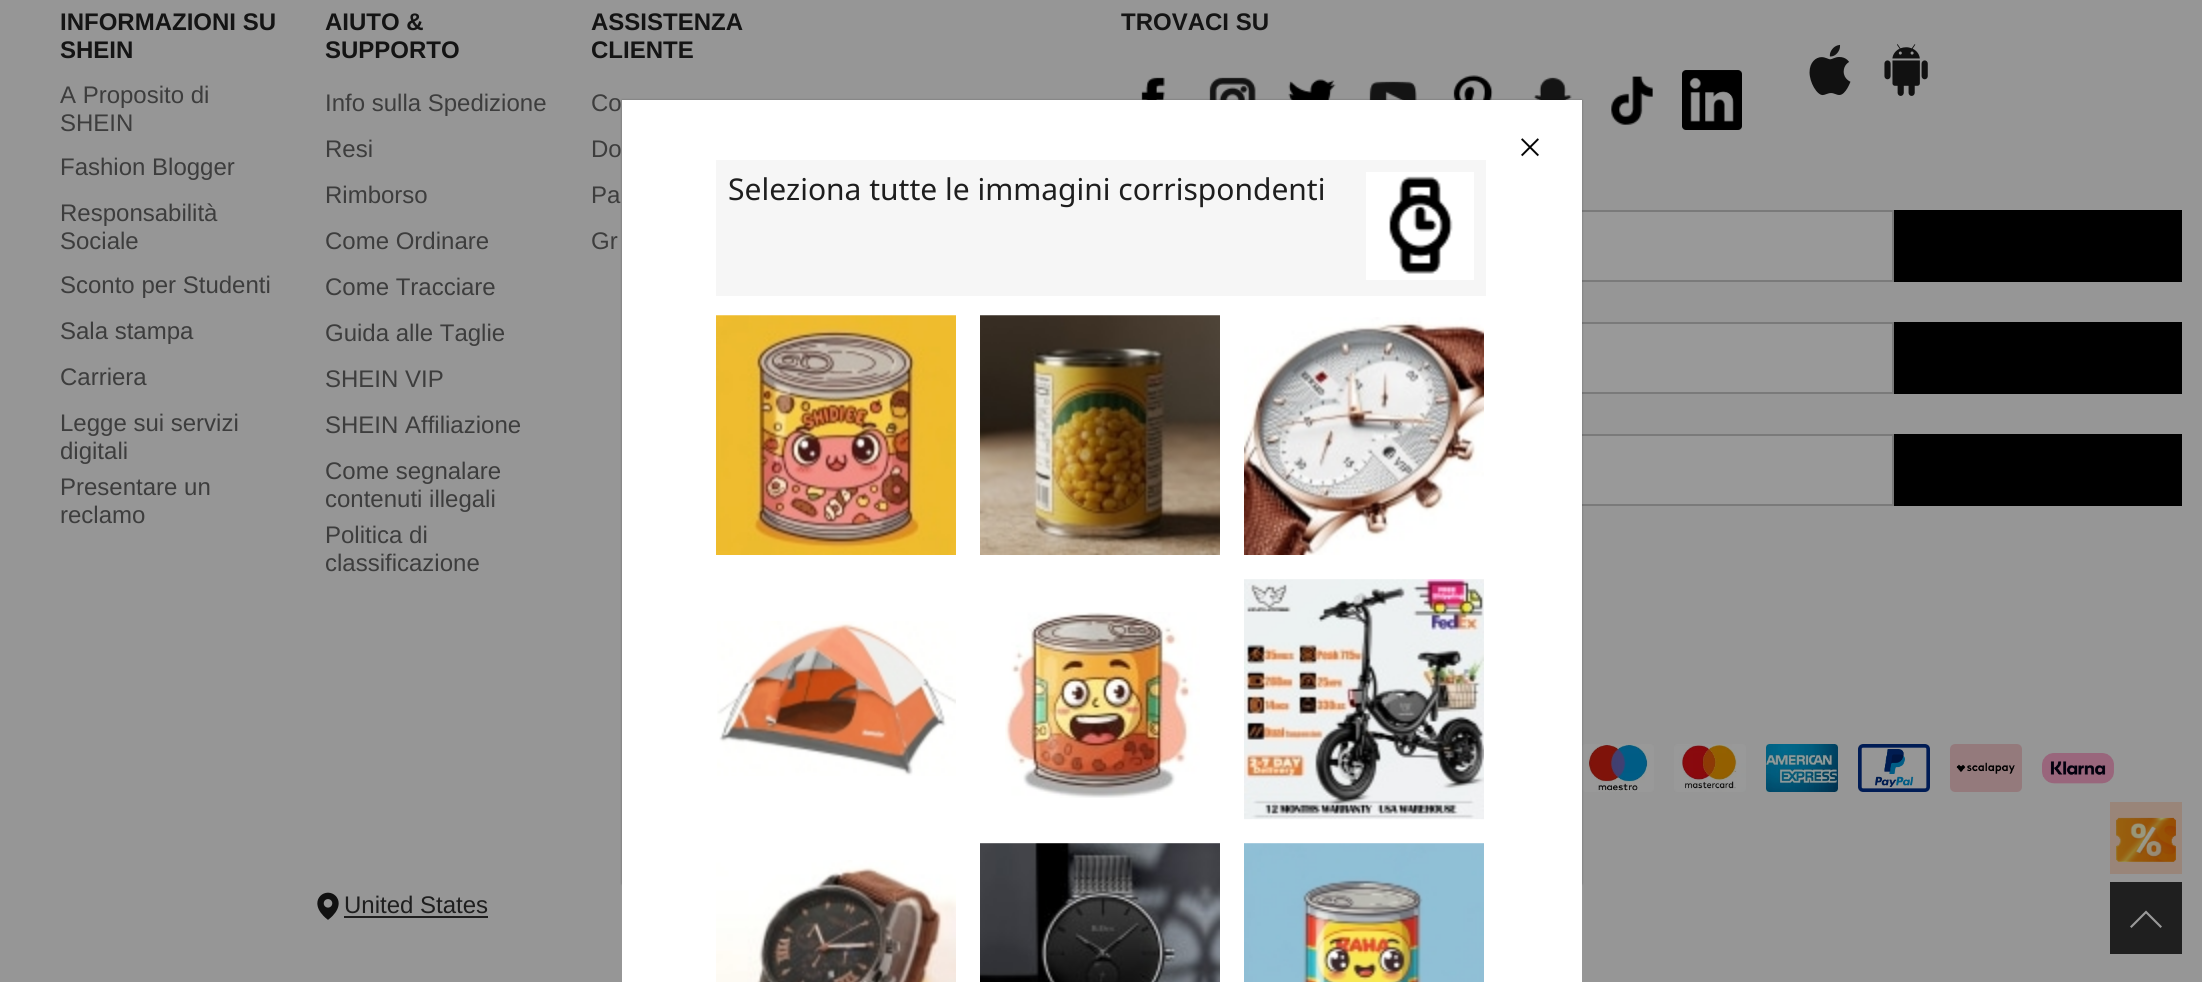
import math
import cairo

surface = cairo.ImageSurface(cairo.FORMAT_RGB24, 2202, 982)
ctx = cairo.Context(surface)
options = cairo.FontOptions()
options.set_hint_metrics(cairo.HINT_METRICS_OFF)
options.set_hint_style(cairo.HINT_STYLE_NONE)
ctx.set_font_options(options)
ctx.set_miter_limit(4)


def set_color(code):
    ctx.set_source_rgb(*(v / 255 for v in bytes.fromhex(code[-6:])))


def draw_text(x, y, s, family, size, color, bold=False, italic=False):
    ctx.select_font_face(family, cairo.FONT_SLANT_ITALIC if italic else cairo.FONT_SLANT_NORMAL, cairo.FONT_WEIGHT_BOLD if bold else cairo.FONT_WEIGHT_NORMAL)
    ctx.set_font_size(size)
    set_color(color)
    ctx.move_to(x, y)
    ctx.show_text(s)


def fill_rect(x, y, w, h, color):
    set_color(color)
    ctx.rectangle(x, y, w, h)
    ctx.fill()


def rounded_rect(x, y, w, h, r):
    ctx.new_sub_path()
    for i, (u, v) in enumerate([(x + w - r, y + h - r), (x + r, y + h - r), (x + r, y + r), (x + w - r, y + r)]):
        ctx.arc(u, v, r, i * math.pi / 2, (i + 1) * math.pi / 2)
    ctx.close_path()


def draw_shadow(x, y, w, h, r, blur, alpha):
    ctx.push_group_with_content(cairo.CONTENT_ALPHA)
    ctx.set_operator(cairo.OPERATOR_SOURCE)
    for i in range(15, -16, -2):
        e = blur * i / 6
        if min(w, h) + 2 * e > 0:
            ctx.set_source_rgba(0, 0, 0, alpha * math.erfc((i - 1) / 8.5) / 2)
            rounded_rect(x - e, y - e, w + 2 * e, h + 2 * e, max(0, min(r + e + blur * .6, min(w, h) / 2 + e)))
            ctx.fill()
    ctx.mask(ctx.pop_group())


def draw_image(path, x, y, w, h):
    ctx.save()
    ctx.set_source_surface(cairo.ImageSurface.create_from_png(path), x, y)
    ctx.rectangle(x, y, w, h)
    ctx.fill()
    ctx.restore()


set_color("#969696")
ctx.paint()
draw_text(60, 30, "INFORMAZIONI SU", "Liberation Sans", 24, "#141414", bold=True)
draw_text(60, 58, "SHEIN", "Liberation Sans", 24, "#141414", bold=True)
draw_text(60, 103, "A Proposito di", "Liberation Sans", 24, "#3d3d3d")
draw_text(60, 131, "SHEIN", "Liberation Sans", 24, "#3d3d3d")
draw_text(60, 175, "Fashion Blogger", "Liberation Sans", 24, "#3d3d3d")
draw_text(60, 221, "Responsabilità", "Liberation Sans", 24, "#3d3d3d")
draw_text(60, 249, "Sociale", "Liberation Sans", 24, "#3d3d3d")
draw_text(60, 293, "Sconto per Studenti", "Liberation Sans", 24, "#3d3d3d")
draw_text(60, 339, "Sala stampa", "Liberation Sans", 24, "#3d3d3d")
draw_text(60, 385, "Carriera", "Liberation Sans", 24, "#3d3d3d")
draw_text(60, 431, "Legge sui servizi", "Liberation Sans", 24, "#3d3d3d")
draw_text(60, 459, "digitali", "Liberation Sans", 24, "#3d3d3d")
draw_text(60, 495, "Presentare un", "Liberation Sans", 24, "#3d3d3d")
draw_text(60, 523, "reclamo", "Liberation Sans", 24, "#3d3d3d")
draw_text(325, 30, "AIUTO &", "Liberation Sans", 24, "#141414", bold=True)
draw_text(325, 58, "SUPPORTO", "Liberation Sans", 24, "#141414", bold=True)
draw_text(325, 111, "Info sulla Spedizione", "Liberation Sans", 24, "#3d3d3d")
draw_text(325, 157, "Resi", "Liberation Sans", 24, "#3d3d3d")
draw_text(325, 203, "Rimborso", "Liberation Sans", 24, "#3d3d3d")
draw_text(325, 249, "Come Ordinare", "Liberation Sans", 24, "#3d3d3d")
draw_text(325, 295, "Come Tracciare", "Liberation Sans", 24, "#3d3d3d")
draw_text(325, 341, "Guida alle Taglie", "Liberation Sans", 24, "#3d3d3d")
draw_text(325, 387, "SHEIN VIP", "Liberation Sans", 24, "#3d3d3d")
draw_text(325, 433, "SHEIN Affiliazione", "Liberation Sans", 24, "#3d3d3d")
draw_text(325, 479, "Come segnalare", "Liberation Sans", 24, "#3d3d3d")
draw_text(325, 507, "contenuti illegali", "Liberation Sans", 24, "#3d3d3d")
draw_text(325, 543, "Politica di", "Liberation Sans", 24, "#3d3d3d")
draw_text(325, 571, "classificazione", "Liberation Sans", 24, "#3d3d3d")
draw_text(591, 30, "ASSISTENZA", "Liberation Sans", 24, "#141414", bold=True)
draw_text(591, 58, "CLIENTE", "Liberation Sans", 24, "#141414", bold=True)
draw_text(591, 111, "Co", "Liberation Sans", 24, "#3d3d3d")
draw_text(591, 157, "Do", "Liberation Sans", 24, "#3d3d3d")
draw_text(591, 203, "Pa", "Liberation Sans", 24, "#3d3d3d")
draw_text(591, 249, "Gr", "Liberation Sans", 24, "#3d3d3d")
draw_text(1121, 30, "TROVACI SU", "Liberation Sans", 24, "#141414", bold=True)
draw_image("assets/img1.png", 1141, 77, 24, 23)
draw_image("assets/img2.png", 1209, 77, 47, 23)
draw_image("assets/img3.png", 1288, 79, 48, 21)
draw_image("assets/img4.png", 1369, 81, 48, 19)
draw_image("assets/img5.png", 1453, 75, 40, 25)
draw_image("assets/img6.png", 1533, 77, 39, 23)
draw_image("assets/img7.png", 1611, 76, 42, 49)
draw_image("assets/img8.png", 1682, 70, 60, 60)
draw_image("assets/img9.png", 1809, 44, 42, 52)
draw_image("assets/img10.png", 1884, 44, 44, 52)
fill_rect(1582, 212, 310, 68, "#999999")
ctx.rectangle(1123, 211, 770, 70)
set_color("#7a7a7a")
ctx.stroke()
fill_rect(1894, 210, 288, 72, "#000000")
fill_rect(1582, 324, 310, 68, "#999999")
ctx.rectangle(1283, 323, 610, 70)
set_color("#7a7a7a")
ctx.stroke()
fill_rect(1894, 322, 288, 72, "#000000")
fill_rect(1582, 436, 310, 68, "#999999")
ctx.rectangle(1283, 435, 610, 70)
set_color("#7a7a7a")
ctx.stroke()
fill_rect(1894, 434, 288, 72, "#000000")
draw_image("assets/img11.png", 1582, 744, 72, 48)
draw_image("assets/img12.png", 1674, 744, 72, 48)
draw_image("assets/img13.png", 1766, 744, 72, 48)
draw_image("assets/img14.png", 1858, 744, 72, 48)
draw_image("assets/img15.png", 1950, 744, 72, 48)
draw_image("assets/img16.png", 2042, 753, 72, 31)
draw_image("assets/img17.png", 317, 892, 22, 28)
draw_text(344, 913, "United States", "Liberation Sans", 24, "#1e1e1e")
fill_rect(344, 916, 144, 2, "#1e1e1e")
fill_rect(2110, 802, 72, 72, "#998579")
draw_image("assets/img18.png", 2116, 817, 60, 45)
fill_rect(2110, 882, 72, 72, "#1f1f1f")
set_color("#999999")
ctx.new_path()
ctx.move_to(2162, 926.5)
ctx.line_to(2146, 910.5)
ctx.line_to(2130, 926.5)
ctx.line_to(2131.5, 928)
ctx.line_to(2146, 913.5)
ctx.line_to(2160.5, 928)
ctx.close_path()
ctx.fill()
set_color("#000000")
draw_shadow(622, 100, 960, 784, 0, 1, 0.3)
fill_rect(622, 100, 960, 882, "#ffffff")
draw_image("assets/img19.png", 1521, 138, 18, 19)
fill_rect(716, 160, 770, 136, "#f6f6f6")
draw_text(728, 200, "Seleziona tutte le immagini corrispondenti", "Noto Sans", 30, "#1e1e1e")
fill_rect(1366, 172, 108, 108, "#ffffff")
draw_image("assets/img20.png", 1389, 176, 64, 98)
draw_image("assets/img21.png", 716, 315, 240, 240)
draw_image("assets/img22.png", 980, 315, 240, 240)
draw_image("assets/img23.png", 1244, 317, 240, 238)
draw_image("assets/img24.png", 717, 621, 239, 155)
draw_image("assets/img25.png", 1005, 612, 195, 186)
draw_image("assets/img26.png", 1244, 579, 240, 241)
draw_image("assets/img27.png", 716, 860, 240, 122)
draw_image("assets/img28.png", 980, 843, 240, 139)
draw_image("assets/img29.png", 1244, 843, 240, 139)
surface.write_to_png("output.png")
